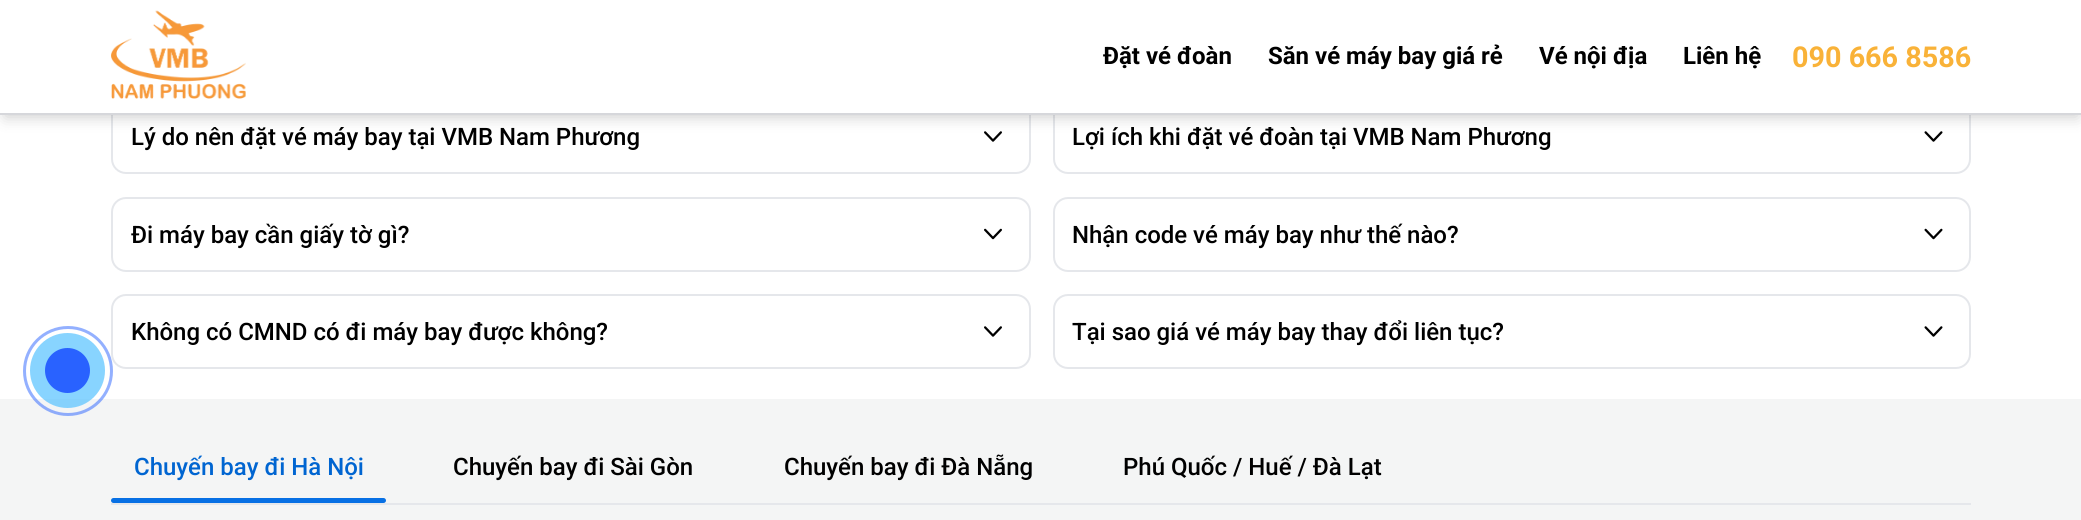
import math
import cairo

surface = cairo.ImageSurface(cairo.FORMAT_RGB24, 2081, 520)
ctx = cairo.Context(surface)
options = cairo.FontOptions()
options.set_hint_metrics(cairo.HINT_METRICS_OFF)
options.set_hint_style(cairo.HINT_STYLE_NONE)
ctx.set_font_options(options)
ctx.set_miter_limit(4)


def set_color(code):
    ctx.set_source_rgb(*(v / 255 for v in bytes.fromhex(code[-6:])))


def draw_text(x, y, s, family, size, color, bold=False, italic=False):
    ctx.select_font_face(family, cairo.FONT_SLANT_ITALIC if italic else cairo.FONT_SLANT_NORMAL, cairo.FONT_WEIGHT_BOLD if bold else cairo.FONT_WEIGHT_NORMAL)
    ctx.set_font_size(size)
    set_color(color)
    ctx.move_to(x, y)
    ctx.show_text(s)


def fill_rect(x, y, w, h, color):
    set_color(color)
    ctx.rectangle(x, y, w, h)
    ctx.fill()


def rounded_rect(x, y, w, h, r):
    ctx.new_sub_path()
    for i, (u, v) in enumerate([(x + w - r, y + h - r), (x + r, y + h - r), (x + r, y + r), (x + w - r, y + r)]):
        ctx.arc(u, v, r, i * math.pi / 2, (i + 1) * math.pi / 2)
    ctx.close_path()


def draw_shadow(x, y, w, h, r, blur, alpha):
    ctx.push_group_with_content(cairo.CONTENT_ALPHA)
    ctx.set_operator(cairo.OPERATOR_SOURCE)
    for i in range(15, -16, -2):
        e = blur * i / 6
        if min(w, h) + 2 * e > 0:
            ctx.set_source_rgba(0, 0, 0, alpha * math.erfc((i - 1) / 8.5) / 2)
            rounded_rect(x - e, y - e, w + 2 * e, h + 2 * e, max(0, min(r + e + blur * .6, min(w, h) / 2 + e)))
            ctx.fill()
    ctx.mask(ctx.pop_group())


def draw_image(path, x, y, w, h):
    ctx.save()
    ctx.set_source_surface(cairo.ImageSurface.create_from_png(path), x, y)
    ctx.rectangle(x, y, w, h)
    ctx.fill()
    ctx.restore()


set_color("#ffffff")
ctx.paint()
rounded_rect(112, 100, 918, 73, 14)
set_color("#e5e7eb")
ctx.stroke()
draw_image("assets/img2.png", 984, 131, 18, 11)
rounded_rect(1054, 100, 916, 73, 14)
ctx.stroke()
draw_image("assets/img3.png", 1924, 131, 19, 11)
set_color("#000000")
draw_shadow(5, 11, 2073, 106, 0, 7.5, 0.2)
fill_rect(0, 0, 2081, 113, "#ffffff")
fill_rect(0, 113, 2081, 2, "#d6d7db")
draw_image("assets/img1.png", 111, 10, 135, 89)
draw_text(1103, 64, "Đặt vé đoàn", "Roboto", 24, "#000000", bold=True)
draw_text(1268, 64, "Săn vé máy bay giá rẻ", "Roboto", 24, "#000000", bold=True)
draw_text(1539, 64, "Vé nội địa", "Roboto", 24, "#000000", bold=True)
draw_text(1683, 64, "Liên hệ", "Roboto", 24, "#000000", bold=True)
draw_text(1792, 67, "090 666 8586", "Roboto", 28.75, "#f9b238", bold=True)
draw_text(131, 145, "Lý do nên đặt vé máy bay tại VMB Nam Phương", "Roboto Medium", 24, "#000000")
draw_text(1072, 145, "Lợi ích khi đặt vé đoàn tại VMB Nam Phương", "Roboto Medium", 24, "#000000")
rounded_rect(112, 198, 918, 73, 14)
set_color("#e5e7eb")
ctx.stroke()
draw_text(131, 243, "Đi máy bay cần giấy tờ gì?", "Roboto Medium", 24, "#000000")
draw_image("assets/img4.png", 984, 228, 18, 12)
rounded_rect(1054, 198, 916, 73, 14)
set_color("#e5e7eb")
ctx.stroke()
draw_text(1072, 243, "Nhận code vé máy bay như thế nào?", "Roboto Medium", 24, "#000000")
draw_image("assets/img5.png", 1924, 228, 19, 12)
rounded_rect(112, 295, 918, 73, 14)
set_color("#e5e7eb")
ctx.stroke()
draw_text(131, 340, "Không có CMND có đi máy bay được không?", "Roboto Medium", 24, "#000000")
draw_image("assets/img2.png", 984, 326, 18, 11)
rounded_rect(1054, 295, 916, 73, 14)
set_color("#e5e7eb")
ctx.stroke()
draw_text(1072, 340, "Tại sao giá vé máy bay thay đổi liên tục?", "Roboto Medium", 24, "#000000")
draw_image("assets/img3.png", 1924, 326, 19, 11)
fill_rect(0, 399, 2081, 121, "#f4f5f5")
ctx.arc(68, 371, 43.5, 0, 2 * math.pi)
ctx.set_source_rgba(0.161, 0.384, 1, 0.5)
ctx.set_line_width(3)
ctx.stroke()
ctx.set_source_rgba(0.38, 0.773, 1, 0.75)
ctx.arc(67.5, 370.5, 37.5, 0, 2 * math.pi)
ctx.fill()
set_color("#2962ff")
ctx.arc(67.5, 370.5, 22.5, 0, 2 * math.pi)
ctx.fill()
fill_rect(111, 503, 1860, 2, "#e5e7eb")
draw_text(134, 475, "Chuyến bay đi Hà Nội", "Roboto Medium", 24, "#0065d1")
set_color("#0770e4")
rounded_rect(111, 498, 275, 5, 2.5)
ctx.fill()
draw_text(453, 475, "Chuyến bay đi Sài Gòn", "Roboto Medium", 24, "#000000")
draw_text(784, 475, "Chuyến bay đi Đà Nẵng", "Roboto Medium", 24, "#000000")
draw_text(1123, 475, "Phú Quốc / Huế / Đà Lạt", "Roboto Medium", 24, "#000000")
surface.write_to_png("output.png")
